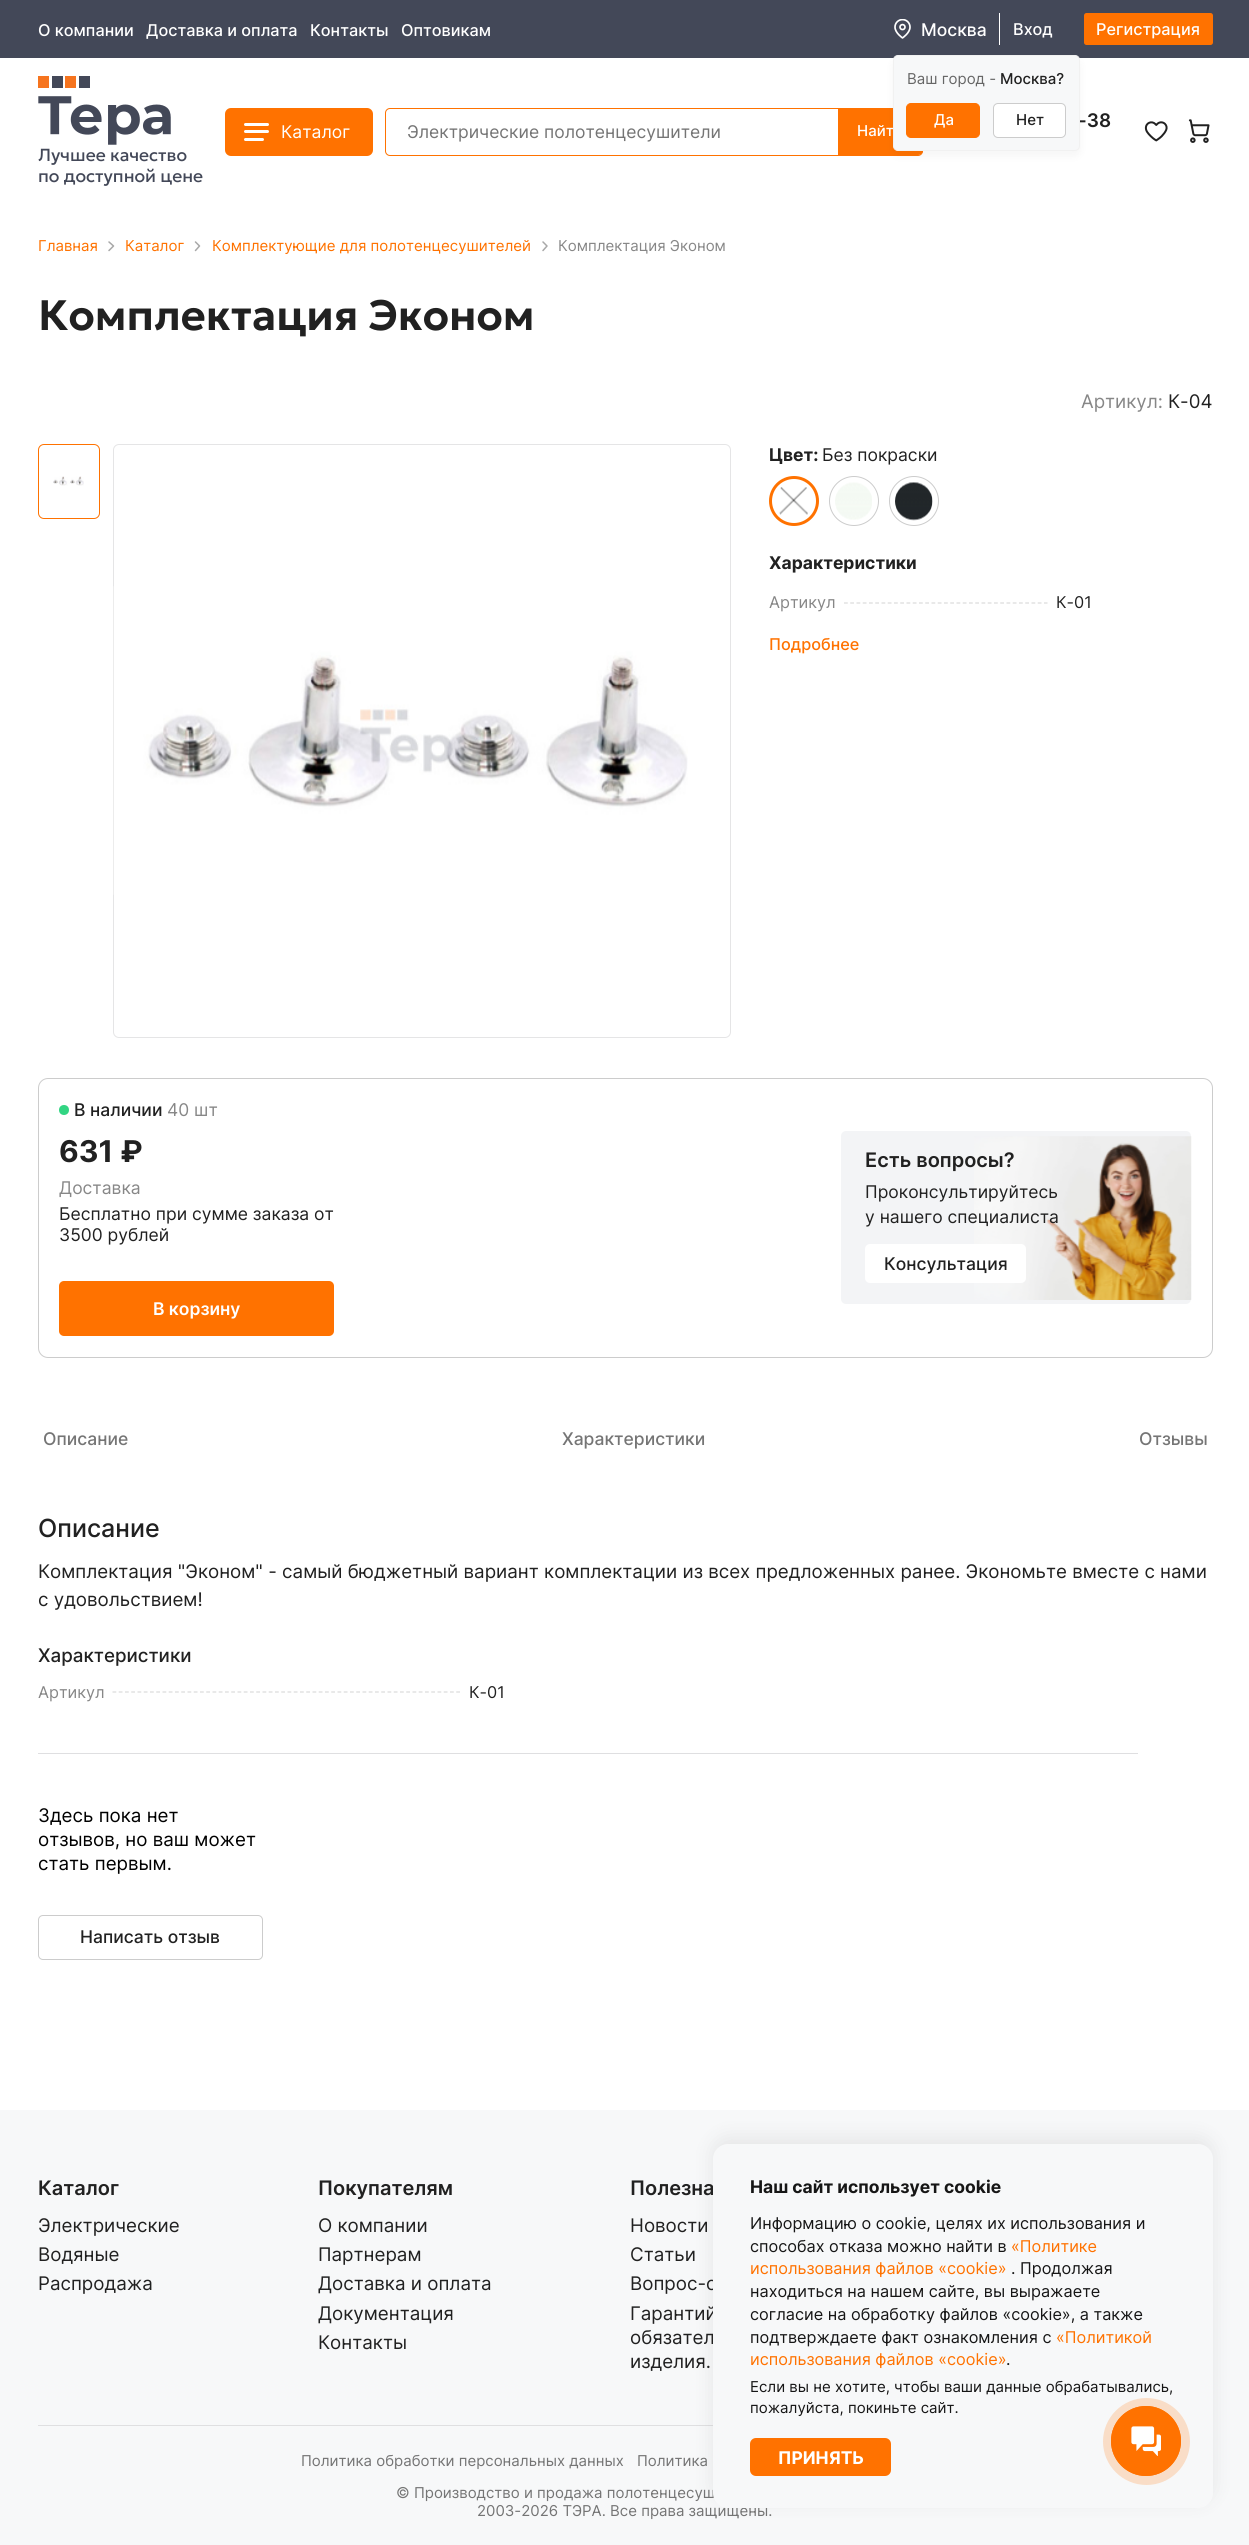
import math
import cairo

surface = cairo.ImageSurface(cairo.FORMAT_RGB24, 1249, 2545)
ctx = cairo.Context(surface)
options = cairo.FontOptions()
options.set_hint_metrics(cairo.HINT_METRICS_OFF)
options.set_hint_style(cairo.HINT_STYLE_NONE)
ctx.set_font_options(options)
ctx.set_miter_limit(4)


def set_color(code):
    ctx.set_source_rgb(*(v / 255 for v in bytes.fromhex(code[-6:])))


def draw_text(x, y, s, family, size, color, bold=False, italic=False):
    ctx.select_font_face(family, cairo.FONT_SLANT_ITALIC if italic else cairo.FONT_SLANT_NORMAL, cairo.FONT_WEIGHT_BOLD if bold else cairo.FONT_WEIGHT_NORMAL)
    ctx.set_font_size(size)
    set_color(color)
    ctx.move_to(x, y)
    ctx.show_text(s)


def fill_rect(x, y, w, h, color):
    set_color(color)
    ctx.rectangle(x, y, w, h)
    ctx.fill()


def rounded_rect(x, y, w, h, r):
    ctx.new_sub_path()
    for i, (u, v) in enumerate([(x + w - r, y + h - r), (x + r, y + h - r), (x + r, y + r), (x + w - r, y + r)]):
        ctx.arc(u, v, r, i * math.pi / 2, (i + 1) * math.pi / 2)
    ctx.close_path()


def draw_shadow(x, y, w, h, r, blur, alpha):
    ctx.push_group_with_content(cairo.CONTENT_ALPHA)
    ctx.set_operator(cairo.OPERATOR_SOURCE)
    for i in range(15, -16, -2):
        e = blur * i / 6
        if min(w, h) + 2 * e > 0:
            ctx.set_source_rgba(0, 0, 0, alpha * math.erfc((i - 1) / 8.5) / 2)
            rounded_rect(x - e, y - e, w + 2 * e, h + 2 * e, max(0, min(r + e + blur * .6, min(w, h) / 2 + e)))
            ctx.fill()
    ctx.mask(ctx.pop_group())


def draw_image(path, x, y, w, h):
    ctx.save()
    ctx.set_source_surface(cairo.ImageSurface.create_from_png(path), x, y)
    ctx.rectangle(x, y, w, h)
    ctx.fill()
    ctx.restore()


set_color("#ffffff")
ctx.paint()
fill_rect(0, 0, 1249, 58, "#434858")
draw_text(38, 36, "О компании", "Inter Medium", 16.25, "#ffffff")
draw_text(146, 36, "Доставка и оплата", "Inter Medium", 16.25, "#ffffff")
draw_text(310, 36, "Контакты", "Inter Medium", 16.25, "#ffffff")
draw_text(401, 36, "Оптовикам", "Inter Medium", 16.25, "#ffffff")
draw_image("assets/img1.png", 894, 19, 17, 20)
draw_text(921, 36, "Москва", "Inter Medium", 17.5, "#ffffff")
fill_rect(999, 13, 1, 32, "#ffffff")
draw_text(1013, 35, "Вход", "Inter Medium", 16.25, "#ffffff")
set_color("#ff7200")
rounded_rect(1084, 13, 129, 32, 2.5)
ctx.fill()
draw_text(1096, 35, "Регистрация", "Inter Medium", 16.25, "#ffffff")
rounded_rect(385.5, 108.5, 537, 47, 4.5)
set_color("#ff7200")
ctx.set_line_width(1)
ctx.stroke()
ctx.new_path()
ctx.move_to(838, 108)
ctx.line_to(918, 108)
ctx.curve_to(921, 108, 923, 110, 923, 113)
ctx.line_to(923, 150)
ctx.curve_to(923, 153, 921, 155, 918, 155)
ctx.line_to(838, 155)
ctx.close_path()
ctx.fill()
set_color("#000000")
draw_shadow(893, 60, 187, 96, 5, 5, 0.04)
draw_text(1078, 127, "-38", "Inter SemiBold", 18.75, "#212121")
draw_text(857, 136, "Найт", "Inter Medium", 15, "#ffffff")
set_color("#f7f8f9")
rounded_rect(893.5, 55.5, 186, 95, 4.5)
ctx.fill_preserve()
set_color("#f1f1f1")
ctx.stroke()
draw_text(907, 84, "Ваш город -", "Inter", 15, "#666666")
draw_text(1000, 84, "Москва?", "Inter Medium", 15, "#212121")
set_color("#ff7200")
rounded_rect(906.5, 103.5, 73, 34, 4.5)
ctx.fill_preserve()
ctx.stroke()
draw_text(934, 125, "Да", "Inter Medium", 15, "#ffffff")
rounded_rect(993.5, 103.5, 72, 34, 4.5)
ctx.fill_preserve()
set_color("#cccccc")
ctx.stroke()
draw_text(1016, 125, "Нет", "Inter Medium", 15, "#212121")
set_color("#ff7200")
rounded_rect(225, 108, 148, 48, 6)
ctx.fill()
set_color("#ffffff")
rounded_rect(244, 123, 25, 3, 1.5)
ctx.fill()
rounded_rect(244, 130, 25, 3, 1.5)
ctx.fill()
rounded_rect(244, 138, 20, 3, 1.5)
ctx.fill()
draw_text(281, 138, "Каталог", "Inter", 17.5, "#ffffff")
draw_text(407, 138, "Электрические полотенцесушители", "Inter", 17.5, "#757575")
draw_image("assets/img2.png", 1144, 121, 24, 21)
draw_image("assets/img3.png", 1188, 119, 22, 24)
draw_image("assets/img4.png", 38, 76, 133, 69)
draw_text(38, 161, "Лучшее качество", "Geologica", 17.5, "#434858")
draw_text(38, 182, "по доступной цене", "Geologica", 17.5, "#434858")
draw_text(38, 251, "Главная", "Inter", 15, "#ff7200")
ctx.new_path()
ctx.move_to(109, 242)
ctx.line_to(113.5, 246)
ctx.line_to(109, 250.5)
set_color("#a8a8a8")
ctx.set_line_width(1.5)
ctx.set_line_cap(cairo.LINE_CAP_ROUND)
ctx.set_line_join(cairo.LINE_JOIN_ROUND)
ctx.stroke()
draw_text(125, 251, "Каталог", "Inter", 15, "#ff7200")
ctx.new_path()
ctx.move_to(195.5, 242)
ctx.line_to(199.5, 246)
ctx.line_to(195.5, 250.5)
set_color("#a8a8a8")
ctx.stroke()
draw_text(212, 251, "Комплектующие для полотенцесушителей", "Inter", 15, "#ff7200")
ctx.new_path()
ctx.move_to(543, 242)
ctx.line_to(547, 246)
ctx.line_to(543, 250.5)
set_color("#a8a8a8")
ctx.stroke()
draw_text(558, 251, "Комплектация Эконом", "Inter", 15, "#878787")
draw_text(38, 330, "Комплектация Эконом", "Geologica SemiBold", 42.5, "#212121")
draw_text(1081, 408, "Артикул:", "Inter", 18.75, "#878787")
draw_text(1168, 408, "К-04", "Inter", 18.75, "#212121")
rounded_rect(38.5, 444.5, 61, 74, 5.5)
set_color("#ff7200")
ctx.set_line_width(1)
ctx.set_line_cap(cairo.LINE_CAP_BUTT)
ctx.set_line_join(cairo.LINE_JOIN_MITER)
ctx.stroke()
draw_image("assets/img5.png", 53, 476, 31, 10)
rounded_rect(113.5, 444.5, 617, 593, 5.5)
set_color("#e5e5e6")
ctx.stroke()
draw_image("assets/img6.png", 113, 586, 575, 309)
draw_text(769, 461, "Цвет:", "Inter", 17.5, "#212121", bold=True)
draw_text(822, 461, "Без покраски", "Inter", 17.5, "#212121")
ctx.new_path()
ctx.arc(794, 501, 23.5, 0, 2 * math.pi)
set_color("#ff7200")
ctx.set_line_width(3)
ctx.stroke()
draw_image("assets/img7.png", 779, 487, 29, 28)
ctx.arc(854, 501, 24.5, 0, 2 * math.pi)
set_color("#cccccc")
ctx.set_line_width(1)
ctx.stroke()
draw_image("assets/img8.png", 835, 482, 37, 38)
ctx.arc(914, 501, 24.5, 0, 2 * math.pi)
ctx.stroke()
draw_image("assets/img9.png", 895, 482, 38, 39)
draw_text(769, 569, "Характеристики", "Inter", 17.5, "#212121", bold=True)
draw_text(769, 608, "Артикул", "Inter", 16.25, "#878787")
ctx.new_path()
ctx.move_to(844, 603)
ctx.line_to(1047.5, 603)
set_color("#dadada")
ctx.set_line_width(1.2)
ctx.set_dash([3.75, 2.5])
ctx.stroke()
draw_text(1056, 608, "К-01", "Inter", 16.25, "#212121")
draw_text(769, 650, "Подробнее", "Inter Medium", 16.25, "#ff7200")
rounded_rect(38.5, 1078.5, 1174, 279, 9.5)
set_color("#cccccc")
ctx.set_line_width(1)
ctx.set_dash([])
ctx.stroke()
set_color("#32d583")
ctx.arc(64, 1110, 5, 0, 2 * math.pi)
ctx.fill()
draw_text(74, 1116, "В наличии", "Inter Medium", 17.5, "#212121")
draw_text(167, 1116, "40 шт", "Inter", 17.5, "#878787")
draw_text(59, 1162, "631 ₽", "Inter", 30, "#212121", bold=True)
draw_text(59, 1194, "Доставка", "Inter", 17.5, "#878787")
draw_text(59, 1220, "Бесплатно при сумме заказа от", "Inter", 17.5, "#212121")
draw_text(59, 1241, "3500 рублей", "Inter", 17.5, "#212121")
set_color("#ff7200")
rounded_rect(59, 1281, 275, 55, 5)
ctx.fill()
draw_text(153, 1315, "В корзину", "Inter SemiBold", 17.5, "#ffffff")
set_color("#f3f4f6")
rounded_rect(841, 1131, 350, 173, 5)
ctx.fill()
draw_image("assets/img10.png", 974, 1136, 218, 164)
draw_text(865, 1167, "Есть вопросы?", "Inter SemiBold", 20, "#212121")
draw_text(865, 1198, "Проконсультируйтесь", "Inter", 17.5, "#212121")
draw_text(865, 1223, "у нашего специалиста", "Inter", 17.5, "#212121")
set_color("#ffffff")
rounded_rect(865, 1244, 161, 39, 5)
ctx.fill()
draw_text(884, 1270, "Консультация", "Inter Medium", 17.5, "#212121")
draw_text(43, 1445, "Описание", "Inter Medium", 17.5, "#757575")
draw_text(562, 1445, "Характеристики", "Inter Medium", 17.5, "#757575")
draw_text(1139, 1445, "Отзывы", "Inter Medium", 17.5, "#757575")
draw_text(38, 1537, "Описание", "Inter Medium", 25, "#212121")
draw_text(38, 1578, "Комплектация \"Эконом\" - самый бюджетный вариант комплектации из всех предложенных ранее. Экономьте вместе с нами", "Inter", 18.75, "#212121")
draw_text(38, 1606, "с удовольствием!", "Inter", 18.75, "#212121")
draw_text(38, 1662, "Характеристики", "Inter Medium", 18.75, "#212121")
draw_text(38, 1698, "Артикул", "Inter", 16.25, "#878787")
ctx.new_path()
ctx.move_to(112.5, 1692)
ctx.line_to(460, 1692)
set_color("#dadada")
ctx.set_line_width(1.2)
ctx.set_dash([3.75, 2.5])
ctx.stroke()
draw_text(469, 1698, "К-01", "Inter", 16.25, "#212121")
fill_rect(38, 1753, 1100, 1, "#dfdfe1")
draw_text(38, 1822, "Здесь пока нет", "Inter", 18.75, "#000000")
draw_text(38, 1846, "отзывов, но ваш может", "Inter", 18.75, "#000000")
draw_text(38, 1870, "стать первым.", "Inter", 18.75, "#000000")
rounded_rect(38.5, 1915.5, 224, 44, 4.5)
set_color("#cccccc")
ctx.set_line_width(1)
ctx.set_dash([])
ctx.stroke()
draw_text(80, 1943, "Написать отзыв", "Inter Medium", 17.5, "#212121")
fill_rect(0, 2110, 1249, 435, "#f7f8f9")
fill_rect(38, 2425, 675, 1, "#dfdfe1")
draw_text(38, 2195, "Каталог", "Inter SemiBold", 20, "#212121")
draw_text(38, 2232, "Электрические", "Inter", 18.75, "#212121")
draw_text(38, 2261, "Водяные", "Inter", 18.75, "#212121")
draw_text(38, 2290, "Распродажа", "Inter", 18.75, "#212121")
draw_text(318, 2195, "Покупателям", "Inter SemiBold", 20, "#212121")
draw_text(318, 2232, "О компании", "Inter", 18.75, "#212121")
draw_text(318, 2261, "Партнерам", "Inter", 18.75, "#212121")
draw_text(318, 2290, "Доставка и оплата", "Inter", 18.75, "#212121")
draw_text(318, 2320, "Документация", "Inter", 18.75, "#212121")
draw_text(318, 2349, "Контакты", "Inter", 18.75, "#212121")
draw_text(630, 2195, "Полезна", "Inter SemiBold", 20, "#212121")
draw_text(630, 2232, "Новости", "Inter", 18.75, "#212121")
draw_text(630, 2261, "Статьи", "Inter", 18.75, "#212121")
draw_text(630, 2290, "Вопрос-о", "Inter", 18.75, "#212121")
draw_text(630, 2320, "Гарантий", "Inter", 18.75, "#212121")
draw_text(630, 2344, "обязател", "Inter", 18.75, "#212121")
draw_text(630, 2368, "изделия.", "Inter", 18.75, "#212121")
draw_text(301, 2466, "Политика обработки персональных данных", "Inter", 15, "#757575")
draw_text(637, 2466, "Политика", "Inter", 15, "#757575")
draw_text(396, 2498, "© Производство и продажа полотенцесуш", "Inter", 15, "#757575")
draw_text(477, 2516, "2003-2026 ТЭРА. Все права защищены.", "Inter", 15, "#757575")
set_color("#3e3e3e")
draw_shadow(713, 2138, 500, 363, 15, 9.5, 0.1)
set_color("#f7f8f9")
rounded_rect(713, 2144, 500, 364, 15)
ctx.fill()
draw_text(750, 2193, "Наш сайт использует cookie", "Inter", 17.5, "#161616", bold=True)
draw_text(750, 2229, "Информацию о cookie, целях их использования и", "Inter", 16.25, "#161616")
draw_text(750, 2252, "способах отказа можно найти в", "Inter", 16.25, "#161616")
draw_text(1011, 2252, "«Политике", "Inter", 16.25, "#ff7200")
draw_text(750, 2274, "использования файлов «cookie»", "Inter", 16.25, "#ff7200")
draw_text(1011, 2274, ". Продолжая", "Inter", 16.25, "#161616")
draw_text(750, 2297, "находиться на нашем сайте, вы выражаете", "Inter", 16.25, "#161616")
draw_text(750, 2320, "согласие на обработку файлов «cookie», а также", "Inter", 16.25, "#161616")
draw_text(750, 2343, "подтверждаете факт ознакомления с", "Inter", 16.25, "#161616")
draw_text(1056, 2343, "«Политикой", "Inter", 16.25, "#ff7200")
draw_text(750, 2365, "использования файлов «cookie»", "Inter", 16.25, "#ff7200")
draw_text(1006, 2365, ".", "Inter", 16.25, "#161616")
draw_text(750, 2392, "Если вы не хотите, чтобы ваши данные обрабатывались,", "Inter", 15, "#161616")
draw_text(750, 2413, "пожалуйста, покиньте сайт.", "Inter", 15, "#161616")
set_color("#ff7200")
rounded_rect(750, 2438, 141, 38, 6)
ctx.fill()
draw_text(778, 2464, "ПРИНЯТЬ", "Inter", 17.5, "#ffffff", bold=True)
set_color("#f9ddc7")
ctx.new_path()
ctx.arc(1146.5, 2441.5, 43.5, 0, 2 * math.pi)
ctx.fill()
ctx.arc(1146, 2441, 34.5, 0, 2 * math.pi)
set_color("#ff7200")
ctx.stroke()
ctx.arc(1146, 2441, 35, 0, 2 * math.pi)
ctx.fill()
draw_image("assets/img11.png", 1131, 2426, 30, 30)
surface.write_to_png("output.png")
